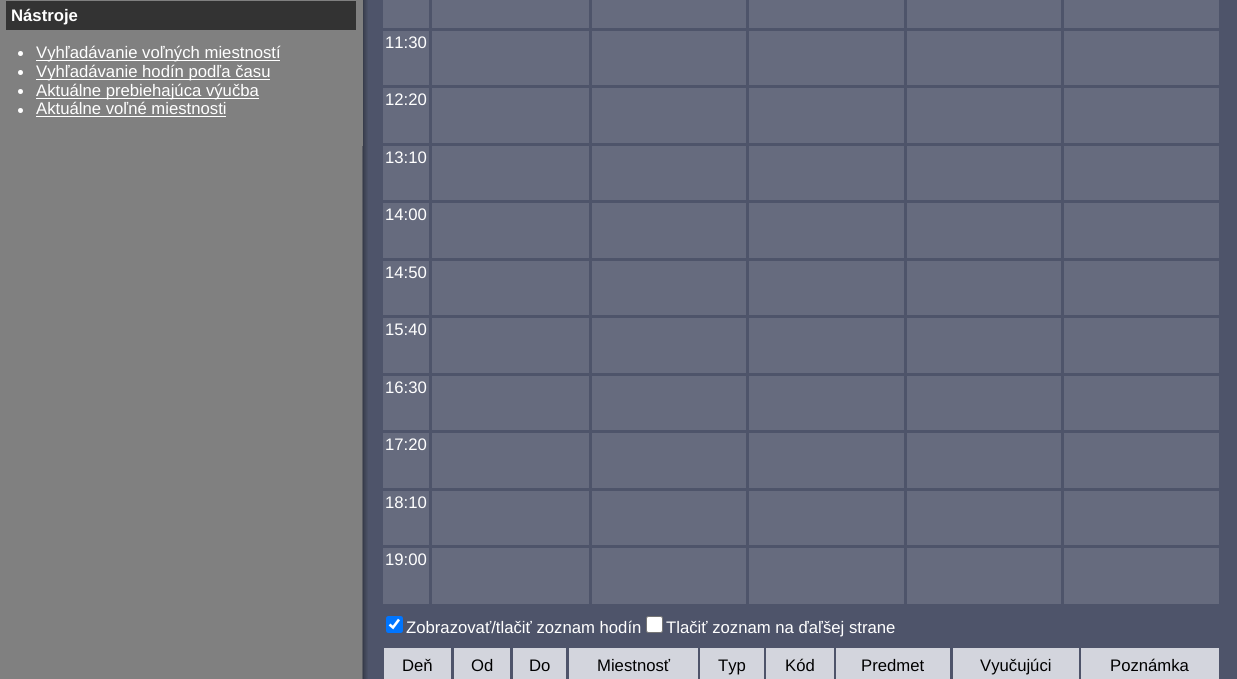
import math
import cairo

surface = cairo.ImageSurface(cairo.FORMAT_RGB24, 1237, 679)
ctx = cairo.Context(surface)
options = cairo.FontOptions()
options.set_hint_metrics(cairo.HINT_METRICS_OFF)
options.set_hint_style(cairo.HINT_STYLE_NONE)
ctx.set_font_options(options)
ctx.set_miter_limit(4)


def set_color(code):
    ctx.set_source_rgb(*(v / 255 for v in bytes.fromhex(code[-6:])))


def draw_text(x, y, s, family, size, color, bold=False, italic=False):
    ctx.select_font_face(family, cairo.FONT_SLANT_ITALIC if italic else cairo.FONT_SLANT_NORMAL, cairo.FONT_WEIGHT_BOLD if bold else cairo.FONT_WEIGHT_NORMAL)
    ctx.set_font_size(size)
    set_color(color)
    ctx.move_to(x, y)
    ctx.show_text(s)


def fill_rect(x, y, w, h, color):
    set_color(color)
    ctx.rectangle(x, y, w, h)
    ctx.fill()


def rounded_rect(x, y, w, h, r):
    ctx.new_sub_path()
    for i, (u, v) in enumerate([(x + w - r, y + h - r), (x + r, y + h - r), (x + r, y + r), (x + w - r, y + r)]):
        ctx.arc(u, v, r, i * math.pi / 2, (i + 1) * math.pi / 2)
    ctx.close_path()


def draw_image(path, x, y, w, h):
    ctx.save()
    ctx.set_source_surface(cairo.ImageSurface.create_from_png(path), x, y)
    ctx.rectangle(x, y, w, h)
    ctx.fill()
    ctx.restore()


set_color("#4e546a")
ctx.paint()
draw_image("assets/img1.png", 0, 0, 368, 679)
fill_rect(362, 0, 1, 146, "#808080")
fill_rect(6, 1, 350, 29, "#333333")
draw_text(11, 21, "Nástroje", "Liberation Sans", 16.7, "#ffffff", bold=True)
ctx.new_path()
ctx.arc(20.5, 53.5, 2.5, 0, 2 * math.pi)
ctx.fill()
fill_rect(36, 60, 244, 1, "#ffffff")
draw_text(36, 58, "Vyhľadávanie voľných miestností", "Liberation Sans", 16.7, "#ffffff")
ctx.new_path()
ctx.arc(20.5, 72.5, 2.5, 0, 2 * math.pi)
ctx.fill()
fill_rect(36, 79, 234, 1, "#ffffff")
draw_text(36, 77, "Vyhľadávanie hodín podľa času", "Liberation Sans", 16.7, "#ffffff")
ctx.new_path()
ctx.arc(20.5, 91.5, 2.5, 0, 2 * math.pi)
ctx.fill()
fill_rect(36, 98, 223, 1, "#ffffff")
draw_text(36, 96, "Aktuálne prebiehajúca výučba", "Liberation Sans", 16.7, "#ffffff")
ctx.new_path()
ctx.arc(20.5, 110.5, 2.5, 0, 2 * math.pi)
ctx.fill()
draw_text(36, 114, "Aktuálne voľné miestnosti", "Liberation Sans", 16.7, "#ffffff")
fill_rect(36, 116, 190, 1, "#ffffff")
fill_rect(383, 0, 46, 28, "#666b7e")
fill_rect(432, 0, 157, 28, "#666b7e")
fill_rect(592, 0, 154, 28, "#666b7e")
fill_rect(749, 0, 155, 28, "#666b7e")
fill_rect(907, 0, 154, 28, "#666b7e")
fill_rect(1064, 0, 155, 28, "#666b7e")
fill_rect(383, 31, 46, 54, "#666b7e")
draw_text(385, 48, "11:30", "Liberation Sans", 16.7, "#ffffff")
fill_rect(432, 31, 157, 54, "#666b7e")
fill_rect(592, 31, 154, 54, "#666b7e")
fill_rect(749, 31, 155, 54, "#666b7e")
fill_rect(907, 31, 154, 54, "#666b7e")
fill_rect(1064, 31, 155, 54, "#666b7e")
fill_rect(383, 88, 46, 55, "#666b7e")
draw_text(385, 105, "12:20", "Liberation Sans", 16.7, "#ffffff")
fill_rect(432, 88, 157, 55, "#666b7e")
fill_rect(592, 88, 154, 55, "#666b7e")
fill_rect(749, 88, 155, 55, "#666b7e")
fill_rect(907, 88, 154, 55, "#666b7e")
fill_rect(1064, 88, 155, 55, "#666b7e")
fill_rect(383, 146, 46, 54, "#666b7e")
draw_text(385, 163, "13:10", "Liberation Sans", 16.7, "#ffffff")
fill_rect(432, 146, 157, 54, "#666b7e")
fill_rect(592, 146, 154, 54, "#666b7e")
fill_rect(749, 146, 155, 54, "#666b7e")
fill_rect(907, 146, 154, 54, "#666b7e")
fill_rect(1064, 146, 155, 54, "#666b7e")
fill_rect(383, 203, 46, 55, "#666b7e")
draw_text(385, 220, "14:00", "Liberation Sans", 16.7, "#ffffff")
fill_rect(432, 203, 157, 55, "#666b7e")
fill_rect(592, 203, 154, 55, "#666b7e")
fill_rect(749, 203, 155, 55, "#666b7e")
fill_rect(907, 203, 154, 55, "#666b7e")
fill_rect(1064, 203, 155, 55, "#666b7e")
fill_rect(383, 261, 46, 54, "#666b7e")
draw_text(385, 278, "14:50", "Liberation Sans", 16.7, "#ffffff")
fill_rect(432, 261, 157, 54, "#666b7e")
fill_rect(592, 261, 154, 54, "#666b7e")
fill_rect(749, 261, 155, 54, "#666b7e")
fill_rect(907, 261, 154, 54, "#666b7e")
fill_rect(1064, 261, 155, 54, "#666b7e")
fill_rect(383, 318, 46, 55, "#666b7e")
draw_text(385, 335, "15:40", "Liberation Sans", 16.7, "#ffffff")
fill_rect(432, 318, 157, 55, "#666b7e")
fill_rect(592, 318, 154, 55, "#666b7e")
fill_rect(749, 318, 155, 55, "#666b7e")
fill_rect(907, 318, 154, 55, "#666b7e")
fill_rect(1064, 318, 155, 55, "#666b7e")
fill_rect(383, 376, 46, 54, "#666b7e")
draw_text(385, 393, "16:30", "Liberation Sans", 16.7, "#ffffff")
fill_rect(432, 376, 157, 54, "#666b7e")
fill_rect(592, 376, 154, 54, "#666b7e")
fill_rect(749, 376, 155, 54, "#666b7e")
fill_rect(907, 376, 154, 54, "#666b7e")
fill_rect(1064, 376, 155, 54, "#666b7e")
fill_rect(383, 433, 46, 55, "#666b7e")
draw_text(385, 450, "17:20", "Liberation Sans", 16.7, "#ffffff")
fill_rect(432, 433, 157, 55, "#666b7e")
fill_rect(592, 433, 154, 55, "#666b7e")
fill_rect(749, 433, 155, 55, "#666b7e")
fill_rect(907, 433, 154, 55, "#666b7e")
fill_rect(1064, 433, 155, 55, "#666b7e")
fill_rect(383, 491, 46, 54, "#666b7e")
draw_text(385, 508, "18:10", "Liberation Sans", 16.7, "#ffffff")
fill_rect(432, 491, 157, 54, "#666b7e")
fill_rect(592, 491, 154, 54, "#666b7e")
fill_rect(749, 491, 155, 54, "#666b7e")
fill_rect(907, 491, 154, 54, "#666b7e")
fill_rect(1064, 491, 155, 54, "#666b7e")
fill_rect(383, 548, 46, 56, "#666b7e")
draw_text(385, 565, "19:00", "Liberation Sans", 16.7, "#ffffff")
fill_rect(432, 548, 157, 56, "#666b7e")
fill_rect(592, 548, 154, 56, "#666b7e")
fill_rect(749, 548, 155, 56, "#666b7e")
fill_rect(907, 548, 154, 56, "#666b7e")
fill_rect(1064, 548, 155, 56, "#666b7e")
set_color("#0075ff")
rounded_rect(386, 616, 17, 17, 2.5)
ctx.fill()
ctx.new_path()
ctx.move_to(389.5, 624.5)
ctx.line_to(393, 627.5)
ctx.line_to(399, 619.5)
set_color("#ffffff")
ctx.set_line_width(2.6)
ctx.stroke()
draw_text(406, 633, "Zobrazovať/tlačiť zoznam hodín", "Liberation Sans", 16.7, "#ffffff")
rounded_rect(646.5, 616.5, 16, 16, 2)
ctx.fill_preserve()
set_color("#767676")
ctx.set_line_width(1)
ctx.stroke()
draw_text(666, 633, "Tlačiť zoznam na ďaľšej strane", "Liberation Sans", 16.7, "#ffffff")
fill_rect(384, 648, 67, 31, "#d3d5dd")
draw_text(402, 671, "Deň", "Liberation Sans", 16.7, "#000000")
fill_rect(454, 648, 56, 31, "#d3d5dd")
draw_text(471, 671, "Od", "Liberation Sans", 16.7, "#000000")
fill_rect(513, 648, 53, 31, "#d3d5dd")
draw_text(529, 671, "Do", "Liberation Sans", 16.7, "#000000")
fill_rect(569, 648, 129, 31, "#d3d5dd")
draw_text(597, 671, "Miestnosť", "Liberation Sans", 16.7, "#000000")
fill_rect(700, 648, 64, 31, "#d3d5dd")
draw_text(718, 671, "Typ", "Liberation Sans", 16.7, "#000000")
fill_rect(766, 648, 68, 31, "#d3d5dd")
draw_text(785, 671, "Kód", "Liberation Sans", 16.7, "#000000")
fill_rect(836, 648, 114, 31, "#d3d5dd")
draw_text(861, 671, "Predmet", "Liberation Sans", 16.7, "#000000")
fill_rect(953, 648, 126, 31, "#d3d5dd")
draw_text(980, 671, "Vyučujúci", "Liberation Sans", 16.7, "#000000")
fill_rect(1081, 648, 138, 31, "#d3d5dd")
draw_text(1110, 671, "Poznámka", "Liberation Sans", 16.7, "#000000")
surface.write_to_png("output.png")
